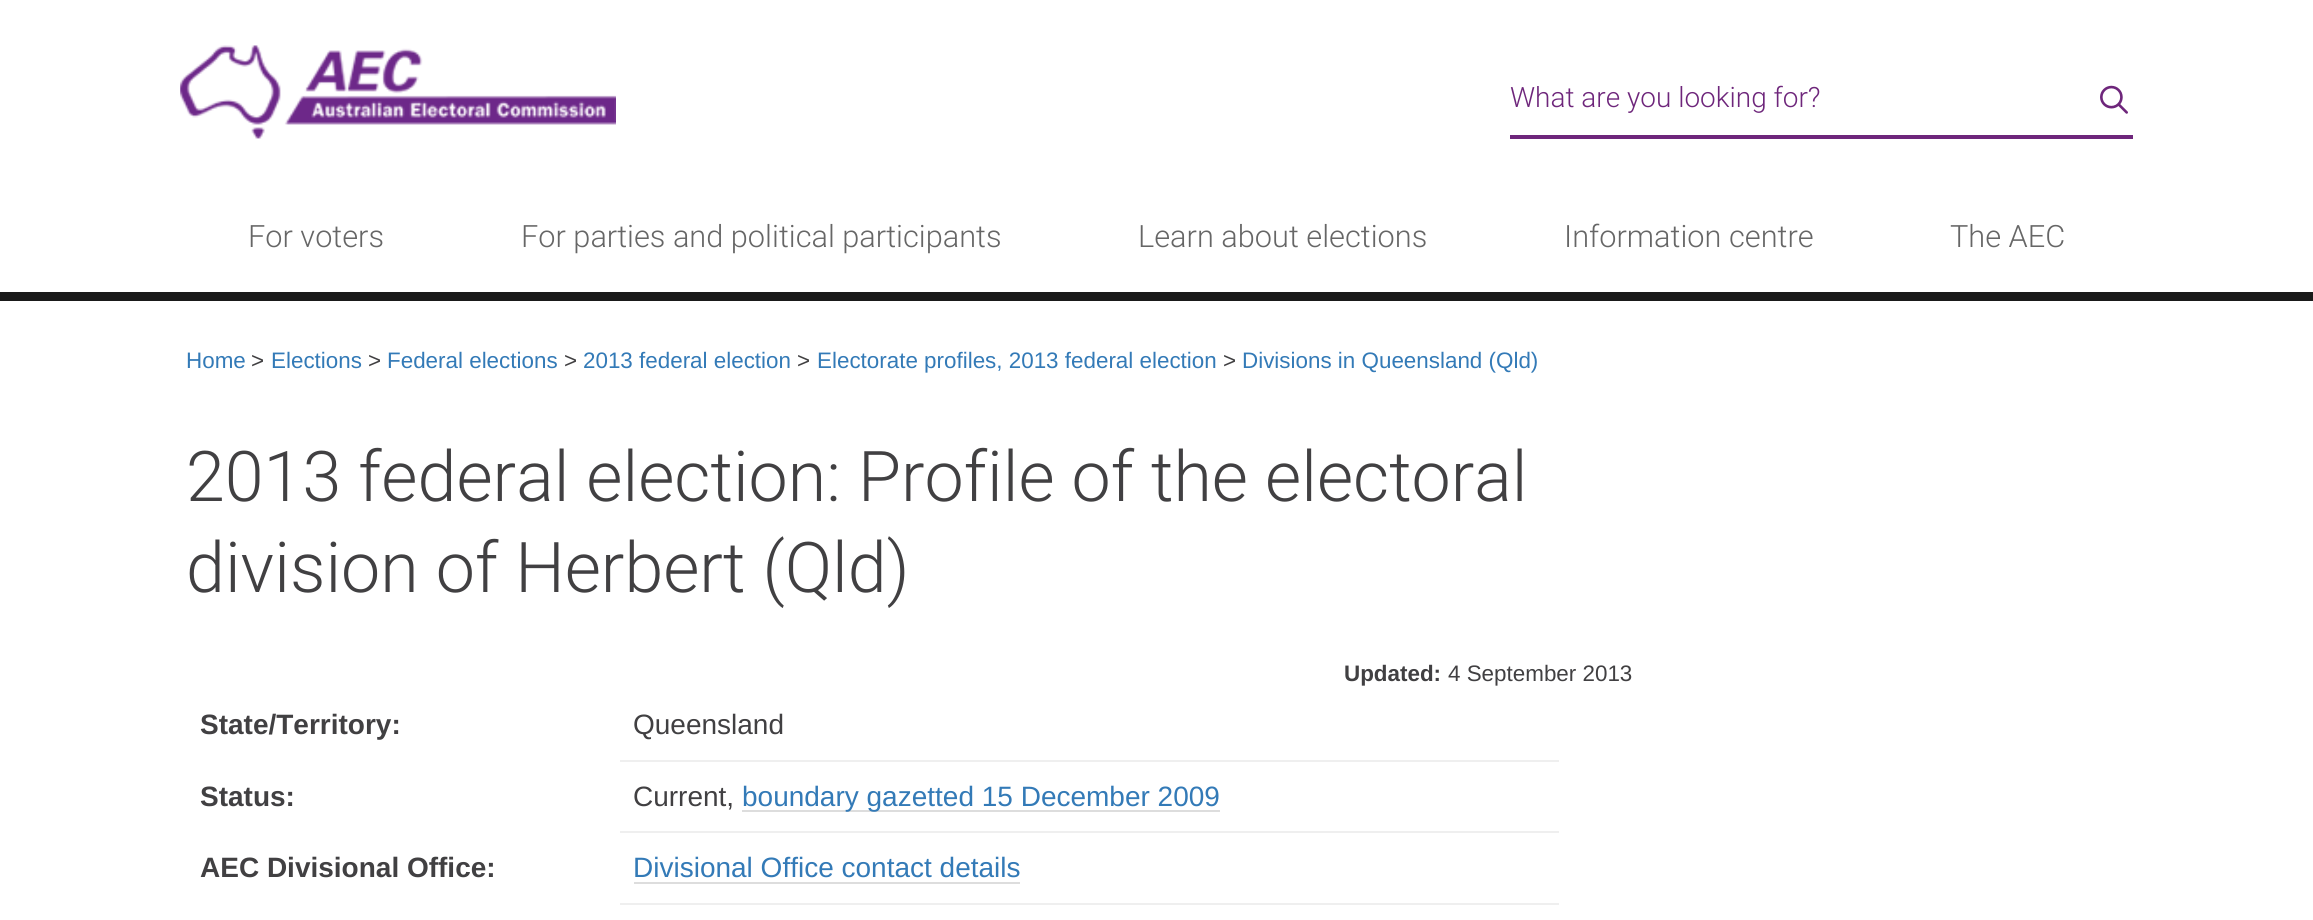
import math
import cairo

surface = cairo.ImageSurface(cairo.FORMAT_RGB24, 2313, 920)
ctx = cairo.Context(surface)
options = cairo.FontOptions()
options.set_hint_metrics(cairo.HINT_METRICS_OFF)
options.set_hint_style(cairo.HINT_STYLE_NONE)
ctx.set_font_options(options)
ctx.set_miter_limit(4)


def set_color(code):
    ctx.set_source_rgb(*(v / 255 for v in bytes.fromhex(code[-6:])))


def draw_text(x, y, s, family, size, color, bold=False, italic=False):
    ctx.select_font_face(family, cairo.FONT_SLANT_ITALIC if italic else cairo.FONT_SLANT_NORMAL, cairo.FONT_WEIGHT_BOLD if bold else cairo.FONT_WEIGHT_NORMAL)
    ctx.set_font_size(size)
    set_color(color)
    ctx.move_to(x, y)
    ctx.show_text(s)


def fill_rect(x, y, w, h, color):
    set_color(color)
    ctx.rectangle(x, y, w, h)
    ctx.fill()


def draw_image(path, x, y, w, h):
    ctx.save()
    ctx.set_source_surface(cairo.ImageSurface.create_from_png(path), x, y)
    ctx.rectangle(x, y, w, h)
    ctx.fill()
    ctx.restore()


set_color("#ffffff")
ctx.paint()
draw_image("assets/img1.png", 180, 45, 436, 94)
fill_rect(1510, 135, 623, 4, "#6e267b")
draw_text(1510, 107, "What are you looking for?", "Roboto Light", 28, "#6e267b")
draw_image("assets/img2.png", 2100, 85, 28, 29)
fill_rect(0, 292, 2313, 9, "#1a1a1a")
draw_text(248, 247, "For voters", "Roboto Light", 30.75, "#666666")
draw_text(521, 247, "For parties and political participants", "Roboto Light", 30.75, "#666666")
draw_text(1138, 247, "Learn about elections", "Roboto Light", 30.75, "#666666")
draw_text(1564, 247, "Information centre", "Roboto Light", 30.75, "#666666")
draw_text(1950, 247, "The AEC", "Roboto Light", 30.75, "#666666")
draw_text(186, 368, "Home", "Liberation Sans", 22.4, "#337ab7")
draw_text(251, 368, ">", "Liberation Sans", 22.4, "#414042")
draw_text(271, 368, "Elections", "Liberation Sans", 22.4, "#337ab7")
draw_text(368, 368, ">", "Liberation Sans", 22.4, "#414042")
draw_text(387, 368, "Federal elections", "Liberation Sans", 22.4, "#337ab7")
draw_text(564, 368, ">", "Liberation Sans", 22.4, "#414042")
draw_text(583, 368, "2013 federal election", "Liberation Sans", 22.4, "#337ab7")
draw_text(797, 368, ">", "Liberation Sans", 22.4, "#414042")
draw_text(817, 368, "Electorate profiles, 2013 federal election", "Liberation Sans", 22.4, "#337ab7")
draw_text(1223, 368, ">", "Liberation Sans", 22.4, "#414042")
draw_text(1242, 368, "Divisions in Queensland (Qld)", "Liberation Sans", 22.4, "#337ab7")
draw_text(186, 501, "2013 federal election: Profile of the electoral", "Roboto Light", 70, "#414042")
draw_text(186, 592, "division of Herbert (Qld)", "Roboto Light", 70, "#414042")
draw_text(1344, 681, "Updated:", "Liberation Sans", 22.4, "#414042", bold=True)
draw_text(1448, 681, "4 September 2013", "Liberation Sans", 22.4, "#414042")
draw_text(200, 734, "State/Territory:", "Liberation Sans", 28, "#414042", bold=True)
fill_rect(620, 760, 939, 2, "#efefef")
draw_text(633, 734, "Queensland", "Liberation Sans", 28, "#414042")
draw_text(200, 806, "Status:", "Liberation Sans", 28, "#414042", bold=True)
fill_rect(620, 831, 939, 2, "#efefef")
draw_text(633, 806, "Current,", "Liberation Sans", 28, "#414042")
fill_rect(742, 810, 478, 2, "#dddddd")
draw_text(742, 806, "boundary gazetted 15 December 2009", "Liberation Sans", 28, "#337ab7")
draw_text(200, 877, "AEC Divisional Office:", "Liberation Sans", 28, "#414042", bold=True)
fill_rect(620, 903, 939, 2, "#efefef")
draw_text(633, 877, "Divisional Office contact details", "Liberation Sans", 28, "#337ab7")
fill_rect(634, 882, 386, 2, "#dddddd")
surface.write_to_png("output.png")
